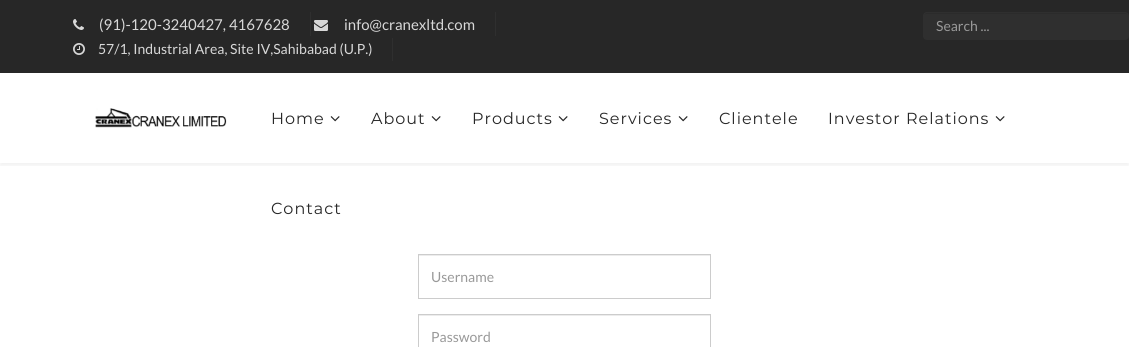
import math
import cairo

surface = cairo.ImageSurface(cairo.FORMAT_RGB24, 1129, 347)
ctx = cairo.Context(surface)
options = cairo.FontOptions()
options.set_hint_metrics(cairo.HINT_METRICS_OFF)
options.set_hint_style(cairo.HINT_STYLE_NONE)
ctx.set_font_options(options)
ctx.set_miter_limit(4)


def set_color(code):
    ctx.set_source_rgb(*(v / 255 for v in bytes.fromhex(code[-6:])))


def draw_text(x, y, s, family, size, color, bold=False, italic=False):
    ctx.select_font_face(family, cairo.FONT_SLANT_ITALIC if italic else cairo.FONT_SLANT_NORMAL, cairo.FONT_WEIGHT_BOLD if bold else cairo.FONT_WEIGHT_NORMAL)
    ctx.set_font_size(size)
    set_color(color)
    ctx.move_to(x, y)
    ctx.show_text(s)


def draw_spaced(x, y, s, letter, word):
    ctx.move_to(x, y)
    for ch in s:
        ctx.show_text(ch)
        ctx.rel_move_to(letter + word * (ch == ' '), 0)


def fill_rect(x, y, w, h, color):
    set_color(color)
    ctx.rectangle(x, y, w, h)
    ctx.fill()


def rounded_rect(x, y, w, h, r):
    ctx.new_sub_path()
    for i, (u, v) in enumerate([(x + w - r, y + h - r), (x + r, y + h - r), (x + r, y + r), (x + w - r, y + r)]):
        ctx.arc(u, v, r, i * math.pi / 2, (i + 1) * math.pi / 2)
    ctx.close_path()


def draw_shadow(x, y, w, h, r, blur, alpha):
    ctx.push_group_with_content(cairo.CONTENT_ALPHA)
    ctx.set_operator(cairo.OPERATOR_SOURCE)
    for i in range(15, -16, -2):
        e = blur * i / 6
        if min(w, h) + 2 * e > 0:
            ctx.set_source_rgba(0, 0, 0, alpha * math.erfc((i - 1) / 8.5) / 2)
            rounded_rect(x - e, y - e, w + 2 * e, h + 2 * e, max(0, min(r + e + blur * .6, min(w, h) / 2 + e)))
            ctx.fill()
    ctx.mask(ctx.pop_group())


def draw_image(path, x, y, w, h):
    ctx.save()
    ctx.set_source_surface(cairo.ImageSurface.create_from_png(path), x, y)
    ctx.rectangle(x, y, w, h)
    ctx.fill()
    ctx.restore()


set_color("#ffffff")
ctx.paint()
fill_rect(0, 0, 1129, 73, "#272727")
fill_rect(310, 12, 1, 24, "#2f2f2f")
draw_image("assets/img1.png", 73, 19, 11, 11)
draw_text(99, 30, "(91)-120-3240427, 4167628", "Lato", 15, "#d8d8d8")
fill_rect(495, 12, 1, 24, "#2f2f2f")
draw_image("assets/img2.png", 314, 20, 14, 11)
draw_text(344, 30, "info@cranexltd.com", "Lato", 15, "#d8d8d8")
fill_rect(392, 38, 1, 23, "#2f2f2f")
draw_image("assets/img3.png", 73, 43, 12, 12)
draw_text(98, 54, "57/1, Industrial Area, Site IV,Sahibabad (U.P.)", "Lato", 14, "#d8d8d8")
set_color("#2f2f2f")
rounded_rect(923, 12, 206, 28, 4)
ctx.fill()
set_color("#2b2b2b")
ctx.new_path()
ctx.move_to(927, 14)
ctx.line_to(1125, 14)
ctx.curve_to(1127, 14, 1128, 15, 1128, 17)
ctx.curve_to(1128, 15, 1127, 13, 1125, 13)
ctx.line_to(927, 13)
ctx.curve_to(925, 13, 924, 15, 924, 17)
ctx.curve_to(924, 15, 925, 14, 927, 14)
ctx.close_path()
ctx.fill()
draw_text(936, 31, "Search ...", "Lato", 14, "#999999")
ctx.save()
ctx.rectangle(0, 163, 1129, 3)
ctx.clip()
set_color("#000000")
draw_shadow(0, 76, 1129, 90, 0, 1.5, 0.05)
ctx.restore()
draw_image("assets/img4.png", 95, 108, 132, 20)
ctx.select_font_face("Montserrat")
ctx.set_font_size(16)
set_color("#272727")
draw_spaced(271, 124, "Home", 1, 0)
draw_image("assets/img5.png", 330, 116, 10, 6)
draw_spaced(371, 124, "About", 1, 0)
draw_image("assets/img5.png", 431, 116, 10, 6)
draw_spaced(472, 124, "Products", 1, 0)
draw_image("assets/img5.png", 558, 116, 10, 6)
draw_spaced(599, 124, "Services", 1, 0)
draw_image("assets/img5.png", 678, 116, 10, 6)
draw_spaced(719, 124, "Clientele", 1, 0)
draw_spaced(828, 124, "Investor Relations", 1, 0)
draw_image("assets/img5.png", 995, 116, 10, 6)
draw_spaced(271, 214, "Contact", 1, 0)
fill_rect(419, 255, 291, 1, "#ececec")
ctx.rectangle(418.5, 254.5, 292, 44)
set_color("#cccccc")
ctx.set_line_width(1)
ctx.stroke()
draw_text(431, 282, "Username", "Lato", 14, "#999999")
fill_rect(419, 315, 291, 1, "#ececec")
ctx.rectangle(418.5, 314.5, 292, 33)
set_color("#cccccc")
ctx.stroke()
draw_text(431, 342, "Password", "Lato", 14, "#999999")
surface.write_to_png("output.png")
